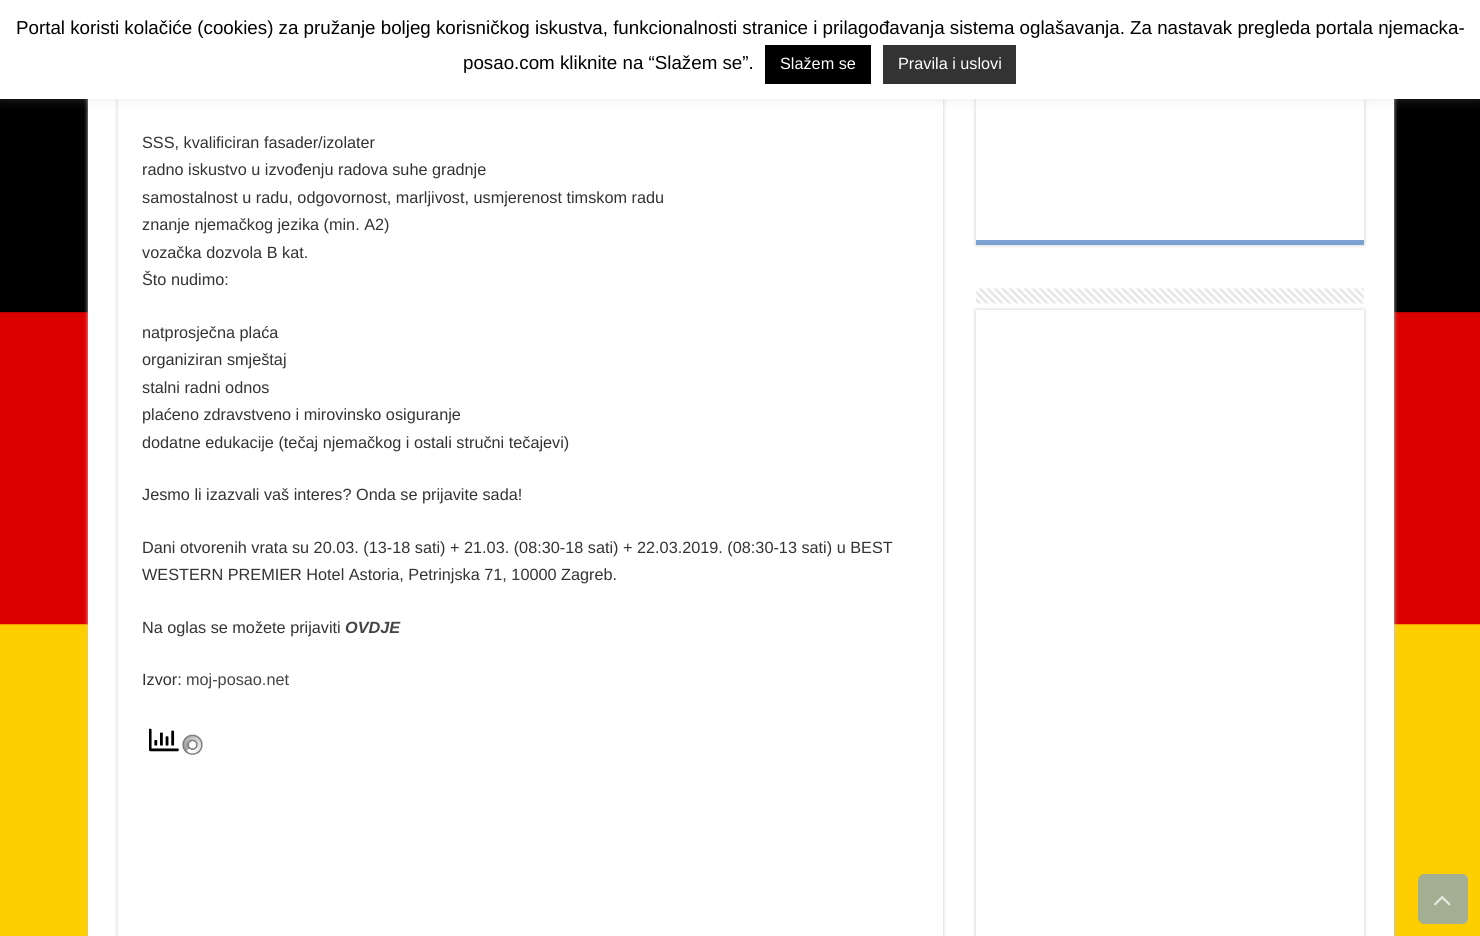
import math
import cairo

surface = cairo.ImageSurface(cairo.FORMAT_RGB24, 1480, 936)
ctx = cairo.Context(surface)
options = cairo.FontOptions()
options.set_hint_metrics(cairo.HINT_METRICS_OFF)
options.set_hint_style(cairo.HINT_STYLE_NONE)
ctx.set_font_options(options)
ctx.set_miter_limit(4)


def set_color(code):
    ctx.set_source_rgb(*(v / 255 for v in bytes.fromhex(code[-6:])))


def draw_text(x, y, s, family, size, color, bold=False, italic=False):
    ctx.select_font_face(family, cairo.FONT_SLANT_ITALIC if italic else cairo.FONT_SLANT_NORMAL, cairo.FONT_WEIGHT_BOLD if bold else cairo.FONT_WEIGHT_NORMAL)
    ctx.set_font_size(size)
    set_color(color)
    ctx.move_to(x, y)
    ctx.show_text(s)


def fill_rect(x, y, w, h, color):
    set_color(color)
    ctx.rectangle(x, y, w, h)
    ctx.fill()


def rounded_rect(x, y, w, h, r):
    ctx.new_sub_path()
    for i, (u, v) in enumerate([(x + w - r, y + h - r), (x + r, y + h - r), (x + r, y + r), (x + w - r, y + r)]):
        ctx.arc(u, v, r, i * math.pi / 2, (i + 1) * math.pi / 2)
    ctx.close_path()


def draw_shadow(x, y, w, h, r, blur, alpha):
    ctx.push_group_with_content(cairo.CONTENT_ALPHA)
    ctx.set_operator(cairo.OPERATOR_SOURCE)
    for i in range(15, -16, -2):
        e = blur * i / 6
        if min(w, h) + 2 * e > 0:
            ctx.set_source_rgba(0, 0, 0, alpha * math.erfc((i - 1) / 8.5) / 2)
            rounded_rect(x - e, y - e, w + 2 * e, h + 2 * e, max(0, min(r + e + blur * .6, min(w, h) / 2 + e)))
            ctx.fill()
    ctx.mask(ctx.pop_group())


def draw_image(path, x, y, w, h):
    ctx.save()
    ctx.set_source_surface(cairo.ImageSurface.create_from_png(path), x, y)
    ctx.rectangle(x, y, w, h)
    ctx.fill()
    ctx.restore()


set_color("#ffffff")
ctx.paint()
draw_image("assets/img1.png", 0, 99, 1480, 837)
set_color("#cacaca")
draw_shadow(88, -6, 1306, 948, 0, 2, 1)
fill_rect(88, 99, 1306, 837, "#ffffff")
set_color("#cacaca")
draw_shadow(118, -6, 825, 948, 0, 2, 1)
fill_rect(118, 99, 825, 837, "#ffffff")
set_color("#cacaca")
draw_shadow(976, -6, 388, 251, 0, 2, 1)
fill_rect(976, 99, 388, 141, "#ffffff")
set_color("#acabab")
draw_shadow(0, -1, 1480, 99, 0, 6, 0.3)
fill_rect(0, 0, 1480, 99, "#ffffff")
draw_text(16, 34, "Portal koristi kolačiće (cookies) za pružanje boljeg korisničkog iskustva, funkcionalnosti stranice i prilagođavanja sistema oglašavanja. Za nastavak pregleda portala njemacka-", "Liberation Sans", 18.75, "#000000")
draw_text(463, 69, "posao.com kliknite na “Slažem se”.", "Liberation Sans", 18.75, "#000000")
fill_rect(765, 45, 106, 39, "#000000")
draw_text(780, 69, "Slažem se", "Liberation Sans", 16.25, "#ffffff")
fill_rect(883, 45, 133, 39, "#333333")
draw_text(898, 69, "Pravila i uslovi", "Liberation Sans", 16.25, "#ffffff")
draw_text(142, 148, "SSS, kvalificiran fasader/izolater", "Liberation Sans", 16.25, "#333333")
draw_text(142, 175, "radno iskustvo u izvođenju radova suhe gradnje", "Liberation Sans", 16.25, "#333333")
draw_text(142, 203, "samostalnost u radu, odgovornost, marljivost, usmjerenost timskom radu", "Liberation Sans", 16.25, "#333333")
draw_text(142, 230, "znanje njemačkog jezika (min. A2)", "Liberation Sans", 16.25, "#333333")
draw_text(142, 258, "vozačka dozvola B kat.", "Liberation Sans", 16.25, "#333333")
draw_text(142, 285, "Što nudimo:", "Liberation Sans", 16.25, "#333333")
draw_text(142, 338, "natprosječna plaća", "Liberation Sans", 16.25, "#333333")
draw_text(142, 365, "organiziran smještaj", "Liberation Sans", 16.25, "#333333")
draw_text(142, 393, "stalni radni odnos", "Liberation Sans", 16.25, "#333333")
draw_text(142, 420, "plaćeno zdravstveno i mirovinsko osiguranje", "Liberation Sans", 16.25, "#333333")
draw_text(142, 448, "dodatne edukacije (tečaj njemačkog i ostali stručni tečajevi)", "Liberation Sans", 16.25, "#333333")
draw_text(142, 500, "Jesmo li izazvali vaš interes? Onda se prijavite sada!", "Liberation Sans", 16.25, "#333333")
draw_text(142, 553, "Dani otvorenih vrata su 20.03. (13-18 sati) + 21.03. (08:30-18 sati) + 22.03.2019. (08:30-13 sati) u BEST", "Liberation Sans", 16.25, "#333333")
draw_text(142, 580, "WESTERN PREMIER Hotel Astoria, Petrinjska 71, 10000 Zagreb.", "Liberation Sans", 16.25, "#333333")
draw_text(142, 633, "Na oglas se možete prijaviti", "Liberation Sans", 16.25, "#333333")
draw_text(345, 633, "OVDJE", "Liberation Sans", 16.25, "#444444", bold=True, italic=True)
draw_text(142, 685, "Izvor:", "Liberation Sans", 16.25, "#333333")
draw_text(186, 685, "moj-posao.net", "Liberation Sans", 16.25, "#444444")
draw_image("assets/img2.png", 149, 728, 30, 24)
draw_image("assets/img3.png", 182, 734, 21, 21)
fill_rect(976, 240, 388, 5, "#7ba2d1")
set_color("#cacaca")
draw_shadow(976, 310, 388, 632, 0, 2, 1)
draw_image("assets/img4.png", 976, 288, 388, 16)
fill_rect(976, 310, 388, 626, "#ffffff")
set_color("#a3af92")
rounded_rect(1418, 874, 50, 50, 6)
ctx.fill()
draw_image("assets/img5.png", 1433, 895, 18, 11)
surface.write_to_png("output.png")
